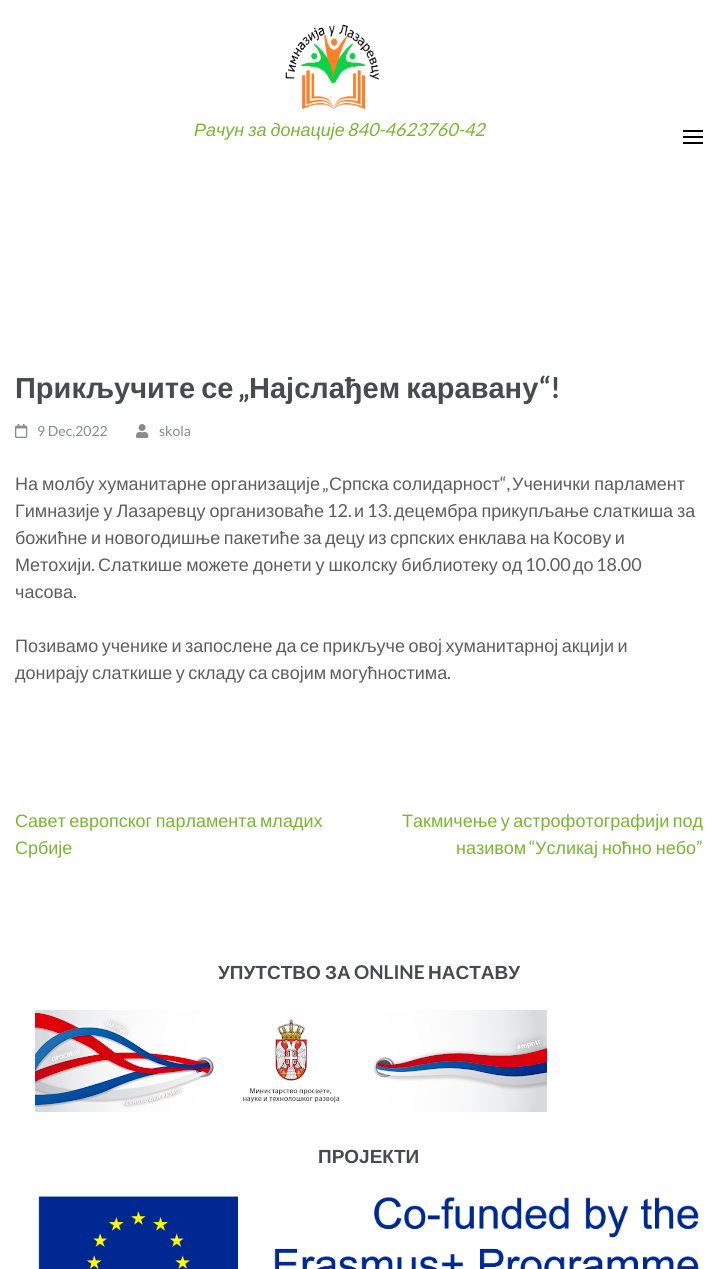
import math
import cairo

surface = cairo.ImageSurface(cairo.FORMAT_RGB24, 718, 1269)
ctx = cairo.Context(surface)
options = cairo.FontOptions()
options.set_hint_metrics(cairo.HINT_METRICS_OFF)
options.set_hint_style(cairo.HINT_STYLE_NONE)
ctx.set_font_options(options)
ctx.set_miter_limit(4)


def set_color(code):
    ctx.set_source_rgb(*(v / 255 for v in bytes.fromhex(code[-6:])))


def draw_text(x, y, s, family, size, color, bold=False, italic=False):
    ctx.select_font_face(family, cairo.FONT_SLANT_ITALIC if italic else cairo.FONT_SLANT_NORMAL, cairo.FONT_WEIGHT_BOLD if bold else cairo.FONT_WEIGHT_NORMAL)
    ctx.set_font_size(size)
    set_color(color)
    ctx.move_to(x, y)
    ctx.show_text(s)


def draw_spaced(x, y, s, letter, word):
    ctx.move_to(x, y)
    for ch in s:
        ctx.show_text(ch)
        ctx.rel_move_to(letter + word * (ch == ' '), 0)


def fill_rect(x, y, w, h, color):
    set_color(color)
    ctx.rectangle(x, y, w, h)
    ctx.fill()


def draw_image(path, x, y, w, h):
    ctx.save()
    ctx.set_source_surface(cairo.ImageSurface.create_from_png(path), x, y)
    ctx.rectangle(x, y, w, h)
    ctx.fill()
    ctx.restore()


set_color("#ffffff")
ctx.paint()
draw_image("assets/img1.png", 285, 24, 94, 96)
ctx.select_font_face("Liberation Sans", cairo.FONT_SLANT_ITALIC)
ctx.set_font_size(18)
set_color("#79b530")
draw_spaced(194, 136, "Рачун за донације", 0, -1)
draw_text(347, 136, "840-4623760-42", "Lato", 18, "#79b530", italic=True)
fill_rect(683, 130, 20, 2, "#000000")
fill_rect(683, 136, 20, 2, "#000000")
fill_rect(683, 142, 20, 2, "#000000")
ctx.select_font_face("Liberation Sans", cairo.FONT_SLANT_NORMAL, cairo.FONT_WEIGHT_BOLD)
ctx.set_font_size(29)
set_color("#474b4e")
draw_spaced(15, 398, "Прикључите се", 0, -2)
draw_text(238, 398, "„", "Lato", 29, "#474b4e", bold=True)
ctx.select_font_face("Liberation Sans", cairo.FONT_SLANT_NORMAL, cairo.FONT_WEIGHT_BOLD)
draw_spaced(249, 398, "Најслађем каравану", 0, -2)
draw_text(539, 398, "“!", "Lato", 29, "#474b4e", bold=True)
draw_image("assets/img2.png", 15, 424, 13, 14)
draw_text(37, 436, "9 Dec,2022", "Lato", 14, "#878b8d")
draw_image("assets/img3.png", 136, 424, 13, 14)
draw_text(159, 436, "skola", "Lato", 14, "#878b8d")
ctx.select_font_face("Liberation Sans")
ctx.set_font_size(18)
set_color("#5d5d5d")
draw_spaced(15, 490, "На молбу хуманитарне организације", 0, -1)
draw_text(322, 490, "„", "Lato", 18, "#5d5d5d")
ctx.select_font_face("Liberation Sans")
draw_spaced(329, 490, "Српска солидарност", 0, -1)
draw_text(500, 490, "“,", "Lato", 18, "#5d5d5d")
ctx.select_font_face("Liberation Sans")
draw_spaced(512, 490, "Ученички парламент", 0, -1)
draw_spaced(15, 517, "Гимназије у Лазаревцу организоваће", 0, -1)
draw_text(327, 517, "12.", "Lato", 18, "#5d5d5d")
draw_text(354, 517, "и", "Liberation Sans", 18, "#5d5d5d")
draw_text(367, 517, "13.", "Lato", 18, "#5d5d5d")
ctx.select_font_face("Liberation Sans")
draw_spaced(394, 517, "децембра прикупљање слаткиша за", 0, -1)
draw_spaced(15, 544, "божићне и новогодишње пакетиће за децу из српских енклава на Косову и", 0, -1.5)
draw_text(15, 571, "Метохији", "Liberation Sans", 18, "#5d5d5d")
draw_text(91, 571, ".", "Lato", 18, "#5d5d5d")
ctx.select_font_face("Liberation Sans")
draw_spaced(98, 571, "Слаткише можете донети у школску библиотеку од", 0, -1)
draw_text(525, 571, "10.00", "Lato", 18, "#5d5d5d")
draw_text(573, 571, "до", "Liberation Sans", 18, "#5d5d5d")
draw_text(596, 571, "18.00", "Lato", 18, "#5d5d5d")
draw_text(15, 598, "часова", "Liberation Sans", 18, "#5d5d5d")
draw_text(73, 598, ".", "Lato", 18, "#5d5d5d")
ctx.select_font_face("Liberation Sans")
draw_spaced(15, 652, "Позивамо ученике и запослене да се прикључе овој хуманитарној акцији и", 0, -1.5)
draw_spaced(15, 679, "донирају слаткише у складу са својим могућностима", 0, -1.5)
draw_text(447, 679, ".", "Lato", 18, "#5d5d5d")
ctx.select_font_face("Liberation Sans")
set_color("#79b530")
draw_spaced(15, 827, "Савет европског парламента младих", 0, -1.5)
draw_text(15, 854, "Србије", "Liberation Sans", 18, "#79b530")
draw_spaced(402, 827, "Такмичење у астрофотографији под", 0, -1.5)
draw_text(529, 854, "“", "Lato", 18, "#79b530")
ctx.select_font_face("Liberation Sans")
draw_spaced(535, 854, "Усликај ноћно небо", 0, -1)
draw_text(696, 854, "”", "Lato", 18, "#79b530")
draw_text(456, 854, "називом", "Liberation Sans", 18, "#79b530")
ctx.select_font_face("Liberation Sans", cairo.FONT_SLANT_NORMAL, cairo.FONT_WEIGHT_BOLD)
ctx.set_font_size(19)
set_color("#474b4e")
draw_spaced(218, 979, "УПУТСТВО ЗА", 0, -1)
draw_text(354, 979, "ONLINE", "Lato", 19, "#474b4e", bold=True)
draw_text(428, 979, "НАСТАВУ", "Liberation Sans", 19, "#474b4e", bold=True)
draw_image("assets/img4.png", 35, 1010, 512, 102)
draw_text(318, 1163, "ПРОЈЕКТИ", "Liberation Sans", 19, "#474b4e", bold=True)
draw_image("assets/img5.png", 38, 1196, 661, 73)
surface.write_to_png("output.png")
